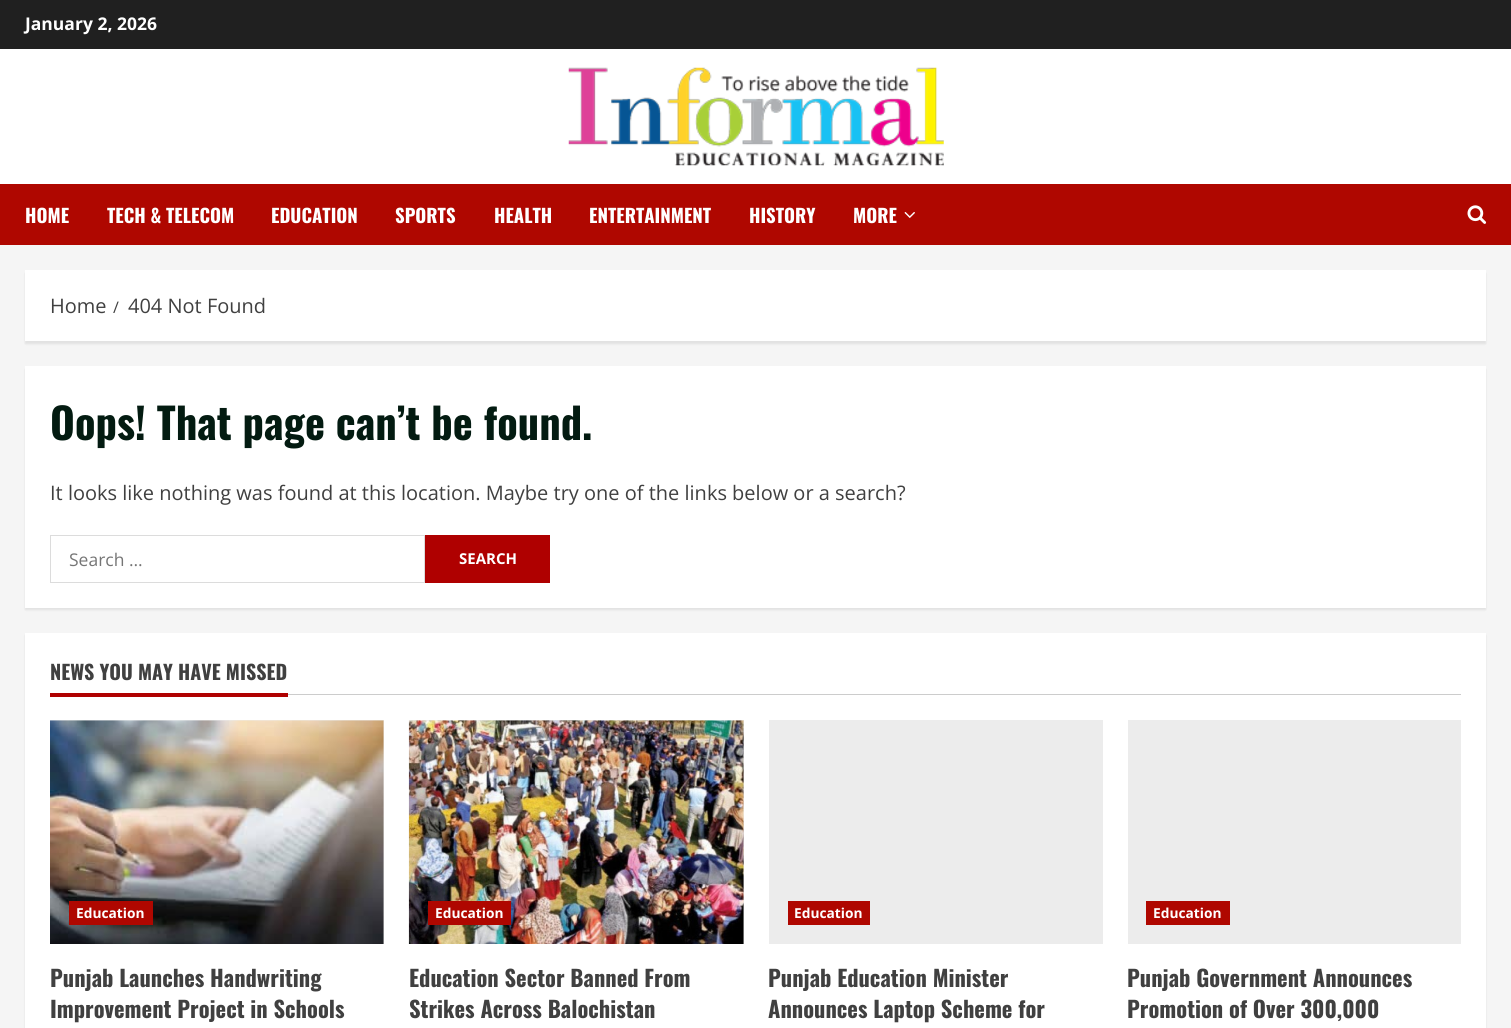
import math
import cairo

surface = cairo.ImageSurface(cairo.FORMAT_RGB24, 1511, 1028)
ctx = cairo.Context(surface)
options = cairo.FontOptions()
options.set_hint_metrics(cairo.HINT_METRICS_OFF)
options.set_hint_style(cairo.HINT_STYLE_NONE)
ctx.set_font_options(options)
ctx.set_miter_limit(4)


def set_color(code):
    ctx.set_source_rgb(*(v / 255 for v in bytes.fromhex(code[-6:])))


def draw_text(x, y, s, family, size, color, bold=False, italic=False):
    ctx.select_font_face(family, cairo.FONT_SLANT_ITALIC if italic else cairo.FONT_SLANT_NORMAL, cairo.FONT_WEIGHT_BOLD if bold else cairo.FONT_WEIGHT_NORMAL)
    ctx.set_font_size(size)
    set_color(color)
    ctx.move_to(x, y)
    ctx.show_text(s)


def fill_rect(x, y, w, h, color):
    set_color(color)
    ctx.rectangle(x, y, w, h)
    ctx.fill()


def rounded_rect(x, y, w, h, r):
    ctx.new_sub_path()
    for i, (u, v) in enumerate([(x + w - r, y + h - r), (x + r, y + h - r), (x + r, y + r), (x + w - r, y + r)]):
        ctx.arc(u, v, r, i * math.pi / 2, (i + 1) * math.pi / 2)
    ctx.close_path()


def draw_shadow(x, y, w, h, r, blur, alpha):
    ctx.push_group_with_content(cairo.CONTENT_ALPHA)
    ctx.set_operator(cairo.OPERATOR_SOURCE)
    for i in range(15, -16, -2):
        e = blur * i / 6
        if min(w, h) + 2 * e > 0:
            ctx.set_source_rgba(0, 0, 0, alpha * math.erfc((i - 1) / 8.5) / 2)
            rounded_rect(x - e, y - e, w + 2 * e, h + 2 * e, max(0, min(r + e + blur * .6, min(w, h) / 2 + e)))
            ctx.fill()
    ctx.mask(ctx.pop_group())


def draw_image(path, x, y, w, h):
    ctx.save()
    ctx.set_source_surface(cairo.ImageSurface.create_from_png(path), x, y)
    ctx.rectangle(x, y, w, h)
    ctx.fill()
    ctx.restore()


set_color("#f5f5f5")
ctx.paint()
fill_rect(0, 0, 1511, 49, "#202020")
draw_text(25, 30, "January 2, 2026", "Open Sans", 17.5, "#ffffff", bold=True)
fill_rect(0, 49, 1511, 135, "#ffffff")
draw_image("assets/img1.png", 568, 67, 376, 99)
fill_rect(0, 184, 1511, 61, "#af0700")
draw_text(25, 223, "HOME", "Oswald", 18.75, "#ffffff", bold=True)
draw_text(107, 223, "TECH & TELECOM", "Oswald", 18.75, "#ffffff", bold=True)
draw_text(271, 223, "EDUCATION", "Oswald", 18.75, "#ffffff", bold=True)
draw_text(395, 223, "SPORTS", "Oswald", 18.75, "#ffffff", bold=True)
draw_text(494, 223, "HEALTH", "Oswald", 18.75, "#ffffff", bold=True)
draw_text(589, 223, "ENTERTAINMENT", "Oswald", 18.75, "#ffffff", bold=True)
draw_text(749, 223, "HISTORY", "Oswald", 18.75, "#ffffff", bold=True)
draw_text(853, 223, "MORE", "Oswald", 18.75, "#ffffff", bold=True)
draw_image("assets/img2.png", 904, 212, 11, 6)
draw_image("assets/img3.png", 1467, 205, 20, 19)
set_color("#000000")
draw_shadow(25, 273, 1461, 71, 0, 1, 0.08)
fill_rect(25, 270, 1461, 71, "#ffffff")
draw_text(50, 313, "Home", "Open Sans", 20, "#404040")
draw_text(113, 313, "/", "Open Sans", 16, "#404040")
draw_text(128, 313, "404 Not Found", "Open Sans", 20, "#404040")
set_color("#000000")
draw_shadow(25, 369, 1461, 241, 0, 1, 0.08)
fill_rect(25, 366, 1461, 242, "#ffffff")
draw_text(50, 440, "Oops! That page can’t be found.", "Oswald", 42.5, "#031b11", bold=True)
draw_text(50, 500, "It looks like nothing was found at this location. Maybe try one of the links below or a search?", "Open Sans", 20, "#404040")
ctx.rectangle(50.5, 535.5, 374, 47)
set_color("#dcdcdc")
ctx.set_line_width(1)
ctx.stroke()
draw_text(69, 566, "Search …", "Open Sans", 17.5, "#757575")
fill_rect(425, 535, 125, 48, "#af0000")
draw_text(459, 564, "SEARCH", "Open Sans", 15, "#ffffff", bold=True)
set_color("#000000")
draw_shadow(25, 635, 1461, 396, 0, 1, 0.08)
fill_rect(25, 633, 1461, 395, "#ffffff")
fill_rect(288, 694, 1173, 1, "#cccccc")
draw_text(50, 680, "NEWS YOU MAY HAVE MISSED", "Oswald", 20, "#404040", bold=True)
fill_rect(50, 693, 238, 4, "#af0000")
fill_rect(50, 720, 334, 224, "#ececec")
draw_image("assets/img4.png", 50, 720, 334, 224)
fill_rect(69, 901, 84, 24, "#af0700")
draw_text(76, 918, "Education", "Open Sans", 13.75, "#ffffff", bold=True)
draw_text(50, 987, "Punjab Launches Handwriting", "Oswald", 22.5, "#404040", bold=True)
draw_text(50, 1018, "Improvement Project in Schools", "Oswald", 22.5, "#404040", bold=True)
fill_rect(409, 720, 335, 224, "#ececec")
draw_image("assets/img5.png", 408, 720, 336, 224)
fill_rect(428, 901, 83, 24, "#af0700")
draw_text(435, 918, "Education", "Open Sans", 13.75, "#ffffff", bold=True)
draw_text(409, 987, "Education Sector Banned From", "Oswald", 22.5, "#404040", bold=True)
draw_text(409, 1018, "Strikes Across Balochistan", "Oswald", 22.5, "#404040", bold=True)
fill_rect(769, 720, 334, 224, "#ececec")
fill_rect(788, 901, 82, 24, "#af0700")
draw_text(794, 918, "Education", "Open Sans", 13.75, "#ffffff", bold=True)
draw_text(768, 987, "Punjab Education Minister", "Oswald", 22.5, "#404040", bold=True)
draw_text(768, 1018, "Announces Laptop Scheme for", "Oswald", 22.5, "#404040", bold=True)
fill_rect(1128, 720, 333, 224, "#ececec")
fill_rect(1146, 901, 84, 24, "#af0700")
draw_text(1153, 918, "Education", "Open Sans", 13.75, "#ffffff", bold=True)
draw_text(1127, 987, "Punjab Government Announces", "Oswald", 22.5, "#404040", bold=True)
draw_text(1127, 1018, "Promotion of Over 300,000", "Oswald", 22.5, "#404040", bold=True)
surface.write_to_png("output.png")
